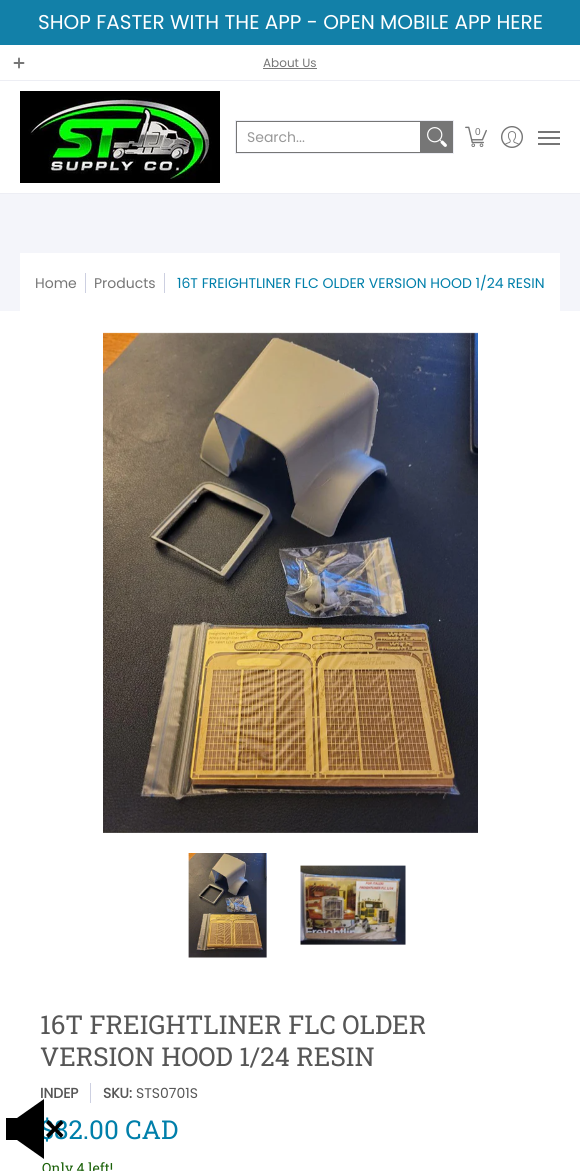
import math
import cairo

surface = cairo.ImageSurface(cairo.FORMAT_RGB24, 580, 1171)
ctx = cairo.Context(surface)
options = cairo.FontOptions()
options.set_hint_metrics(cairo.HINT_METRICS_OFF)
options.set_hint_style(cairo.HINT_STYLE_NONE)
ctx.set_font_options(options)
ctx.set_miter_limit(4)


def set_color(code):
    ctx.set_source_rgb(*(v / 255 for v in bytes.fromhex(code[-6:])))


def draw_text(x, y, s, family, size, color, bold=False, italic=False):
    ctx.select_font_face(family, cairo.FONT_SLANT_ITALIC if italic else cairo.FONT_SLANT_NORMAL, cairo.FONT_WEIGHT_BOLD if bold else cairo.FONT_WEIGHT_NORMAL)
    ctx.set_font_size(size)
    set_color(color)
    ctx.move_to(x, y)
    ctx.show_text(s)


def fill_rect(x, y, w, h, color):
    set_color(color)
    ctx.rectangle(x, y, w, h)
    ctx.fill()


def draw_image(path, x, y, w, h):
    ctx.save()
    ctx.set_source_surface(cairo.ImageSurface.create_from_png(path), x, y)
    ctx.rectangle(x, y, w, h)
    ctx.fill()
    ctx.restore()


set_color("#ffffff")
ctx.paint()
fill_rect(0, 0, 580, 45, "#1280a8")
draw_text(38, 29, "SHOP FASTER WITH THE APP - OPEN MOBILE APP HERE", "Poppins", 20, "#ffffff")
fill_rect(0, 80, 580, 1, "#edeef4")
draw_image("assets/img1.png", 13, 57, 12, 12)
draw_text(263, 67, "About Us", "Poppins", 12, "#767676")
fill_rect(263, 68, 54, 1, "#767676")
fill_rect(0, 193, 580, 1, "#edeef4")
draw_image("assets/img2.png", 20, 91, 200, 92)
ctx.rectangle(235.5, 120.5, 218, 33)
ctx.set_line_width(1)
ctx.stroke()
ctx.rectangle(236.5, 121.5, 184, 31)
set_color("#767676")
ctx.stroke()
draw_text(247, 142, "Search...", "Poppins", 14, "#989898")
fill_rect(421, 121, 32, 32, "#767676")
draw_image("assets/img3.png", 427, 127, 20, 20)
draw_image("assets/img4.png", 465, 126, 22, 22)
draw_text(475, 135, "0", "Liberation Sans", 10, "#767676")
draw_image("assets/img5.png", 501, 126, 22, 22)
fill_rect(538, 131, 22, 2, "#767676")
fill_rect(538, 143, 22, 2, "#767676")
fill_rect(538, 137, 22, 2, "#767676")
draw_text(40, 1139, "$82.00 CAD", "Roboto Slab", 26, "#007faa")
set_color("#000000")
ctx.set_fill_rule(cairo.FILL_RULE_EVEN_ODD)
ctx.new_path()
ctx.move_to(44, 1159)
ctx.line_to(44, 1099)
ctx.line_to(17, 1118)
ctx.line_to(6, 1118)
ctx.line_to(6, 1140)
ctx.line_to(17, 1140)
ctx.close_path()
ctx.move_to(61, 1120)
ctx.line_to(55, 1126.5)
ctx.line_to(48.5, 1120)
ctx.line_to(46, 1123)
ctx.line_to(52, 1129)
ctx.line_to(46, 1135)
ctx.line_to(48.5, 1138)
ctx.line_to(55, 1131.5)
ctx.line_to(61, 1138)
ctx.line_to(63.5, 1135)
ctx.line_to(57.5, 1129)
ctx.line_to(63.5, 1123)
ctx.close_path()
ctx.fill()
fill_rect(0, 194, 580, 117, "#f4f5fa")
fill_rect(20, 253, 540, 58, "#ffffff")
draw_text(35, 288, "Home", "Poppins", 14, "#767676")
fill_rect(85, 273, 1, 20, "#cdd0e1")
draw_text(94, 288, "Products", "Poppins", 14, "#767676")
fill_rect(164, 273, 1, 20, "#cdd0e1")
draw_text(177, 288, "16T FREIGHTLINER FLC OLDER VERSION HOOD 1/24 RESIN", "Poppins", 14, "#007faa")
draw_image("assets/img6.png", 103, 332, 375, 501)
draw_image("assets/img7.png", 188, 853, 79, 105)
draw_image("assets/img8.png", 300, 865, 106, 80)
draw_text(40, 1034, "16T FREIGHTLINER FLC OLDER", "Roboto Slab", 26, "#565656")
draw_text(40, 1066, "VERSION HOOD 1/24 RESIN", "Roboto Slab", 26, "#565656")
draw_text(40, 1098, "INDEP", "Poppins", 14, "#565656", bold=True)
fill_rect(90, 1083, 1, 20, "#cdd0e1")
draw_text(103, 1098, "SKU:", "Poppins", 14, "#565656", bold=True)
draw_text(136, 1098, "STS0701S", "Poppins", 14, "#565656")
draw_text(42, 1173, "Only 4 left!", "Roboto Slab", 14, "#1b6109")
surface.write_to_png("output.png")
